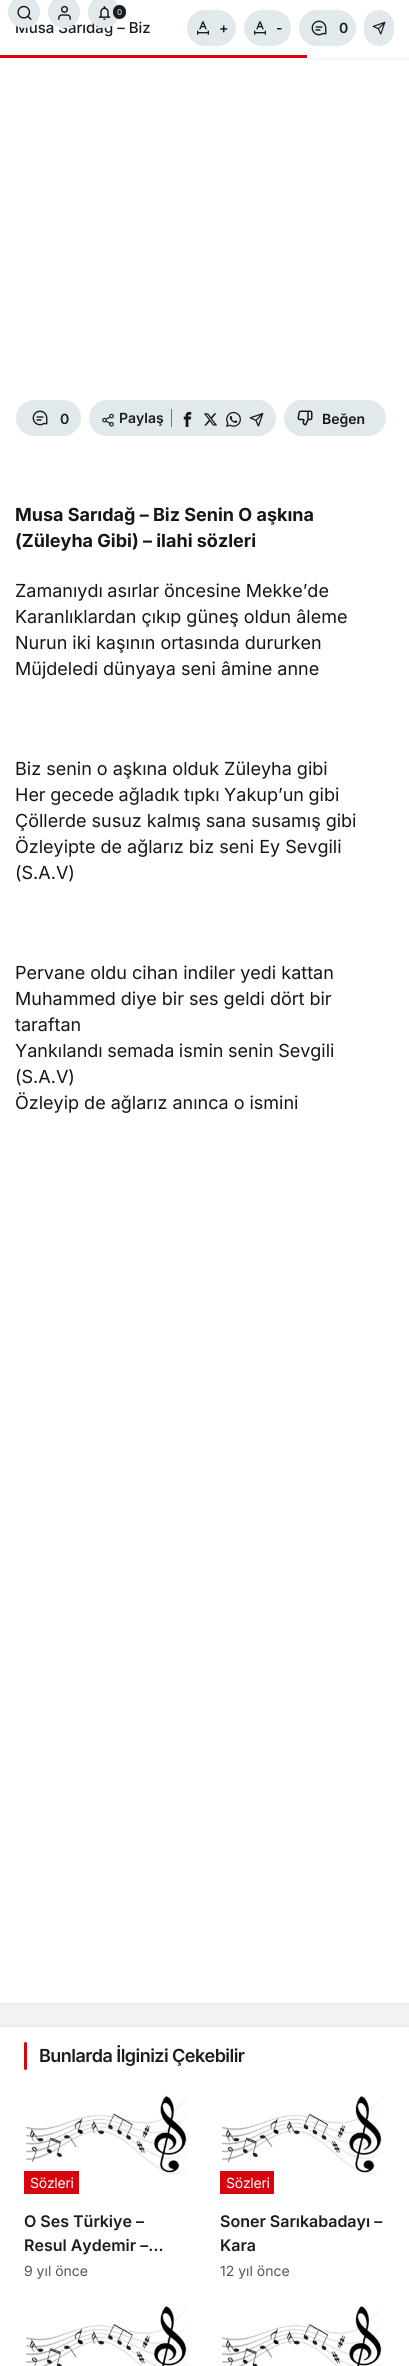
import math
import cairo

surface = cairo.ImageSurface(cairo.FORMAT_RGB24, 409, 2366)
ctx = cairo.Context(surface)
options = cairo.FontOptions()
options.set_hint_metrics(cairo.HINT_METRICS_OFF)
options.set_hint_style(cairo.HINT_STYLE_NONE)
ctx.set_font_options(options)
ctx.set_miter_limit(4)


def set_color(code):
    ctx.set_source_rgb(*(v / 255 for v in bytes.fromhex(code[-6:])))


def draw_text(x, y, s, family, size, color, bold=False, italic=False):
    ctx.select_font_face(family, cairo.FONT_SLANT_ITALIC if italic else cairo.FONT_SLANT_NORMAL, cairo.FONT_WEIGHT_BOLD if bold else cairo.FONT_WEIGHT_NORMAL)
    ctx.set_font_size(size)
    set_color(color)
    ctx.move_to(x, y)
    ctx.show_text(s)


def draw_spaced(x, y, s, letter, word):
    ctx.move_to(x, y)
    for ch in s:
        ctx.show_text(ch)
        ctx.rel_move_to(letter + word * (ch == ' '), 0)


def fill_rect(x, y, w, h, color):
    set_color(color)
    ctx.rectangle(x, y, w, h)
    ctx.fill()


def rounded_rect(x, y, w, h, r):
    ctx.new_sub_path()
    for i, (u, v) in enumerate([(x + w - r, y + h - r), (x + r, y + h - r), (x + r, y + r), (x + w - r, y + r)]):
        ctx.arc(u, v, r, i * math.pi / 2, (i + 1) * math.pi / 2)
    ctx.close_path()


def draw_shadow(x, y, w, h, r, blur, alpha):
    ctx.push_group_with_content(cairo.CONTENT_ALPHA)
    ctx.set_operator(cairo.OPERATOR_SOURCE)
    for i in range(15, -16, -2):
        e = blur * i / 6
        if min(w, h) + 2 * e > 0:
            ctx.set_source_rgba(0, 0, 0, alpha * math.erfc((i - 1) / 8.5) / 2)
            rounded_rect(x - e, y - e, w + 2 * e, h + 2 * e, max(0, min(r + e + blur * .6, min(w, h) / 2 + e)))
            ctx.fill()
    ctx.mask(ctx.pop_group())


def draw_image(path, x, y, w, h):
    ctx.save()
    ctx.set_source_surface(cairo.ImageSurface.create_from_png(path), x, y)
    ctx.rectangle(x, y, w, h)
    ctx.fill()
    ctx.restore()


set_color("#f2f2f3")
ctx.paint()
set_color("#32353d")
draw_shadow(0, -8, 409, 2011, 0, 2.5, 0.1)
fill_rect(0, 0, 409, 2003, "#ffffff")
ctx.save()
ctx.rectangle(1, 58, 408, 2)
ctx.clip()
set_color("#000000")
draw_shadow(1, 0, 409, 58, 0, 2.5, 0.1)
ctx.restore()
draw_text(15, 33, "Musa Sarıdağ – Biz", "Inter Medium", 15, "#191c20")
set_color("#e1e9ed")
ctx.new_path()
ctx.arc(24, 12, 16, 0, 2 * math.pi)
ctx.fill()
draw_image("assets/img1.png", 17, 5, 15, 15)
ctx.arc(64, 12, 16, 0, 2 * math.pi)
ctx.fill()
draw_image("assets/img2.png", 58, 5, 13, 15)
ctx.arc(104, 12, 16, 0, 2 * math.pi)
ctx.fill()
draw_image("assets/img3.png", 98, 6, 13, 14)
set_color("#191c20")
rounded_rect(113, 5, 13, 14, 6.5)
ctx.fill()
draw_text(117, 15, "0", "Inter", 8, "#ffffff")
set_color("#e1e9ed")
rounded_rect(187, 10, 49, 36, 18)
ctx.fill()
draw_image("assets/img4.png", 197, 21, 12, 14)
draw_text(219, 33, "+", "Inter SemiBold", 14, "#191c20")
set_color("#e1e9ed")
rounded_rect(244, 10, 47, 36, 18)
ctx.fill()
draw_image("assets/img4.png", 254, 21, 12, 14)
draw_text(276, 33, "-", "Inter SemiBold", 14, "#191c20")
set_color("#e1e9ed")
rounded_rect(299, 10, 57, 36, 18)
ctx.fill()
draw_image("assets/img5.png", 311, 20, 16, 16)
draw_text(339, 33, "0", "Inter SemiBold", 14, "#191c20")
set_color("#e1e9ed")
rounded_rect(364, 10, 30, 36, 15)
ctx.fill()
draw_image("assets/img6.png", 372, 21, 14, 14)
fill_rect(0, 55, 307, 3, "#d7050f")
draw_text(15, 521, "Musa Sarıdağ – Biz Senin O aşkına", "Inter", 18, "#161616", bold=True)
draw_text(15, 547, "(Züleyha Gibi) – ilahi sözleri", "Inter", 18, "#161616", bold=True)
ctx.select_font_face("Inter")
draw_spaced(15, 597, "Zamanıydı asırlar öncesine Mekke’de", 0, -0.5)
draw_text(15, 623, "Karanlıklardan çıkıp güneş oldun âleme", "Inter", 18, "#161616")
draw_text(15, 649, "Nurun iki kaşının ortasında dururken", "Inter", 18, "#161616")
draw_text(15, 675, "Müjdeledi dünyaya seni âmine anne", "Inter", 18, "#161616")
draw_text(15, 775, "Biz senin o aşkına olduk Züleyha gibi", "Inter", 18, "#161616")
draw_spaced(15, 801, "Her gecede ağladık tıpkı Yakup’un gibi", 0, -0.5)
draw_text(15, 827, "Çöllerde susuz kalmış sana susamış gibi", "Inter", 18, "#161616")
draw_text(15, 853, "Özleyipte de ağlarız biz seni Ey Sevgili", "Inter", 18, "#161616")
draw_text(15, 879, "(S.A.V)", "Inter", 18, "#161616")
draw_text(15, 979, "Pervane oldu cihan indiler yedi kattan", "Inter", 18, "#161616")
draw_text(15, 1005, "Muhammed diye bir ses geldi dört bir", "Inter", 18, "#161616")
draw_text(15, 1031, "taraftan", "Inter", 18, "#161616")
draw_spaced(15, 1057, "Yankılandı semada ismin senin Sevgili", 0, -0.5)
draw_text(15, 1083, "(S.A.V)", "Inter", 18, "#161616")
draw_text(15, 1109, "Özleyip de ağlarız anınca o ismini", "Inter", 18, "#161616")
set_color("#e1e9ed")
rounded_rect(16, 400, 65, 36, 18)
ctx.fill()
draw_image("assets/img5.png", 32, 410, 16, 16)
draw_text(60, 424, "0", "Inter SemiBold", 14, "#191c20")
set_color("#e1e9ed")
rounded_rect(89, 400, 187, 36, 18)
ctx.fill()
fill_rect(171, 409, 1, 18, "#717577")
draw_image("assets/img7.png", 102, 413, 12, 14)
draw_text(119, 423, "Paylaş", "Inter SemiBold", 14, "#191c20")
draw_image("assets/img8.png", 183, 411, 9, 16)
draw_image("assets/img9.png", 203, 413, 15, 13)
draw_image("assets/img10.png", 226, 411, 15, 16)
draw_image("assets/img11.png", 249, 412, 15, 15)
set_color("#e1e9ed")
rounded_rect(284, 400, 102, 36, 18)
ctx.fill()
draw_image("assets/img12.png", 297, 410, 16, 16)
draw_text(322, 424, "Beğen", "Inter SemiBold", 14, "#161616")
set_color("#32353d")
draw_shadow(0, 2027, 409, 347, 0, 2.5, 0.1)
fill_rect(0, 2027, 409, 339, "#ffffff")
set_color("#d7050f")
rounded_rect(24, 2042, 3, 28, 1.5)
ctx.fill()
ctx.set_font_size(18)
set_color("#191c20")
draw_spaced(39, 2062, "Bunlarda İlginizi Çekebilir", -0.55, 0)
draw_image("assets/img13.png", 24, 2084, 165, 110)
fill_rect(24, 2171, 55, 23, "#d7050f")
ctx.select_font_face("Inter")
ctx.set_font_size(14)
set_color("#ffffff")
draw_spaced(30, 2188, "Sözleri", -0.25, 0)
draw_text(24, 2276, "9 yıl önce", "Inter", 14, "#525659")
draw_text(24, 2227, "O Ses Türkiye –", "Inter SemiBold", 16, "#191c20")
draw_text(24, 2251, "Resul Aydemir –…", "Inter SemiBold", 16, "#191c20")
draw_image("assets/img14.png", 220, 2084, 165, 110)
fill_rect(220, 2171, 54, 23, "#d7050f")
ctx.select_font_face("Inter")
ctx.set_font_size(14)
set_color("#ffffff")
draw_spaced(226, 2188, "Sözleri", -0.25, 0)
draw_text(220, 2276, "12 yıl önce", "Inter", 14, "#525659")
draw_text(220, 2227, "Soner Sarıkabadayı –", "Inter SemiBold", 16, "#191c20")
draw_text(220, 2251, "Kara", "Inter SemiBold", 16, "#191c20")
draw_image("assets/img15.png", 24, 2294, 165, 72)
draw_image("assets/img16.png", 220, 2294, 165, 72)
surface.write_to_png("output.png")
